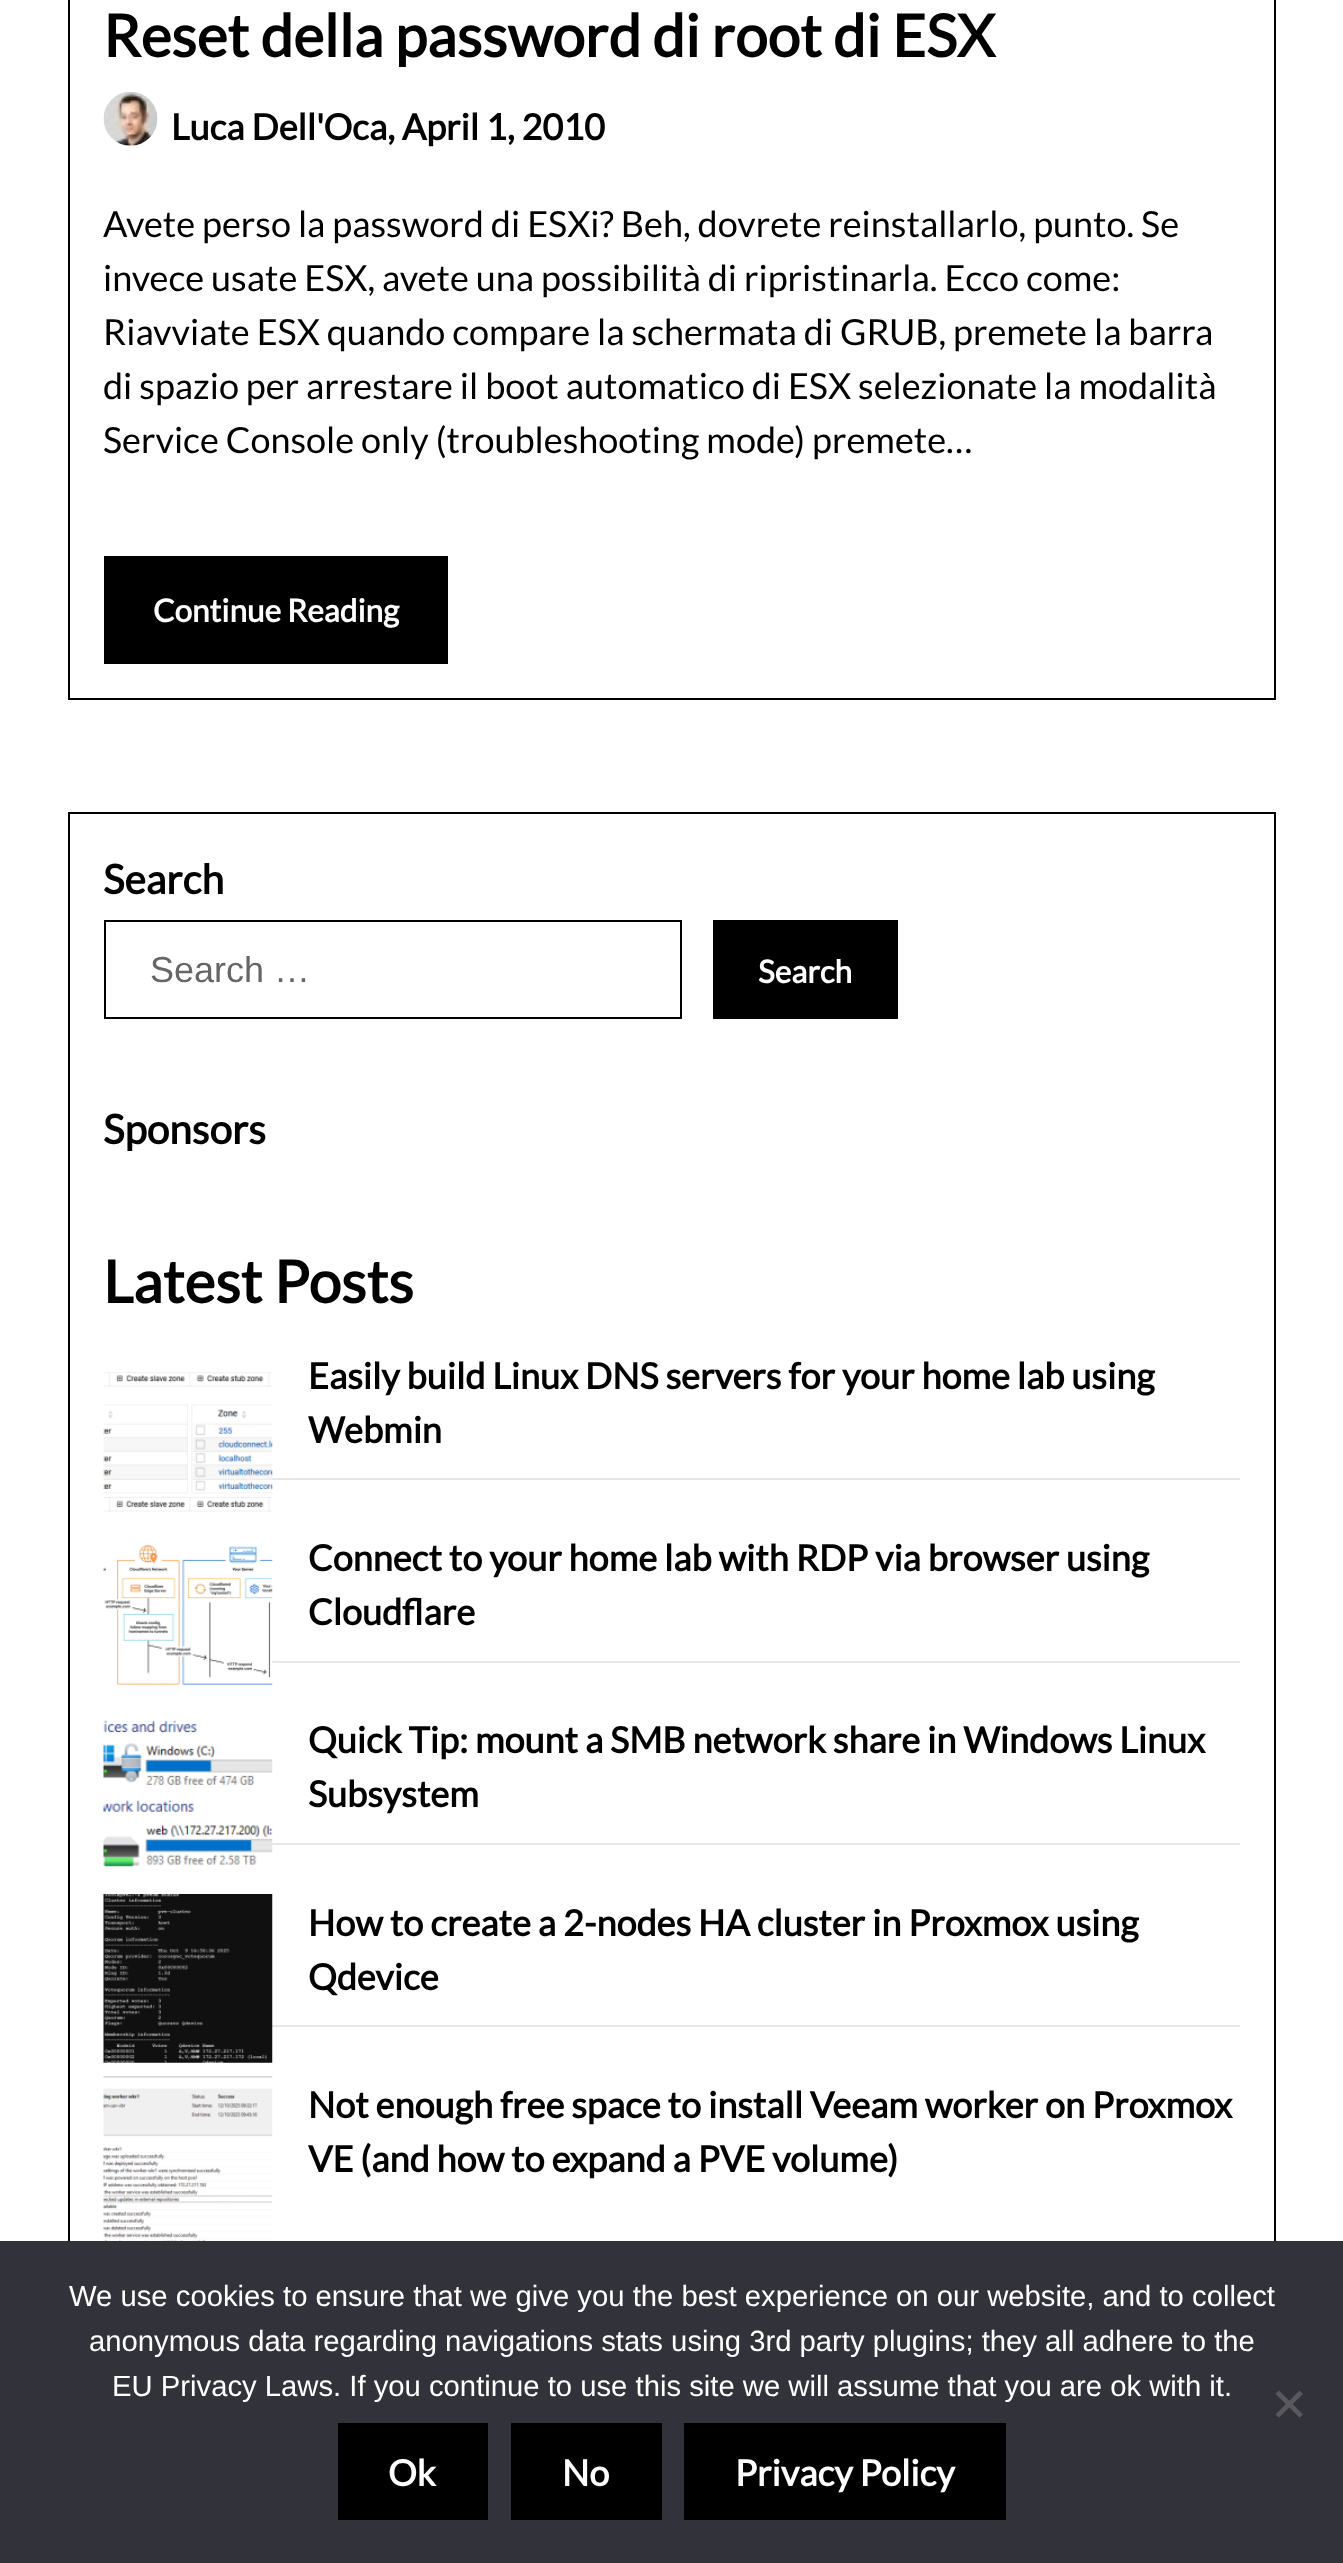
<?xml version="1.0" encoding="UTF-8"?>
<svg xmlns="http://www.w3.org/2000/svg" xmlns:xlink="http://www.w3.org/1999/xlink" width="1343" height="2563">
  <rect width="100%" height="100%" fill="#ffffff" />
  <rect x="69" y="-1" width="1206" height="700" fill="none" stroke="#000000" stroke-width="2" />
  <image x="103" y="92" width="55" height="54" xlink:href="image1.png" />
  <rect x="104" y="556" width="344" height="108" fill="#000000" />
  <rect x="69" y="813" width="1206" height="1481" fill="none" stroke="#000000" stroke-width="2" />
  <rect x="105" y="921" width="576" height="97" fill="none" stroke="#000000" stroke-width="2" />
  <rect x="713" y="920" width="185" height="99" fill="#000000" />
  <rect x="272" y="1478" width="968" height="2" fill="#e6e6e6" />
  <image x="103" y="1372" width="170" height="140" xlink:href="image2.png" />
  <rect x="272" y="1661" width="968" height="2" fill="#e6e6e6" />
  <image x="103" y="1545" width="170" height="140" xlink:href="image3.png" />
  <rect x="272" y="1843" width="968" height="2" fill="#e6e6e6" />
  <image x="103" y="1720" width="170" height="147" xlink:href="image4.png" />
  <rect x="272" y="2025" width="968" height="2" fill="#e6e6e6" />
  <image x="103" y="1894" width="170" height="169" xlink:href="image5.png" />
  <image x="103" y="2076" width="170" height="165" xlink:href="image6.png" />
  <rect y="2241" width="1343" height="322" fill="#32323a" />
  <path d="M 1299.5 2390.5 l 3.5 3.5 l -24 23.5 l -3.5 -3 z" fill="#59595d" />
  <path d="M 1275.5 2394 l 3.5 -3.5 l 24 24 l -3.5 3 z" fill="#59595d" />
  <rect x="338" y="2423" width="150" height="97" fill="#000000" />
  <rect x="511" y="2423" width="151" height="97" fill="#000000" />
  <rect x="684" y="2423" width="322" height="97" fill="#000000" />
  <text x="103" y="57" style="font-family: Lato; font-size: 58.5px; font-weight: bold; fill: #000000">Reset della password di root di ESX</text>
  <text x="171" y="140" style="font-family: Lato; font-size: 36px; font-weight: bold; fill: #000000">Luca Dell'Oca, April 1, 2010</text>
  <text x="103" y="237" style="font-family: Lato; font-size: 36px; fill: #000000">Avete perso la password di ESXi? Beh, dovrete reinstallarlo, punto. Se</text>
  <text x="103" y="291" style="font-family: Lato; font-size: 36px; fill: #000000">invece usate ESX, avete una possibilità di ripristinarla. Ecco come:</text>
  <text x="103" y="345" style="font-family: Lato; font-size: 36px; fill: #000000">Riavviate ESX quando compare la schermata di GRUB, premete la barra</text>
  <text x="103" y="399" style="font-family: Lato; font-size: 36px; fill: #000000">di spazio per arrestare il boot automatico di ESX selezionate la modalità</text>
  <text x="103" y="453" style="font-family: Lato; font-size: 36px; fill: #000000">Service Console only (troubleshooting mode) premete…</text>
  <text x="153" y="622" style="font-family: Lato; font-size: 31.5px; font-weight: bold; fill: #ffffff">Continue Reading</text>
  <text x="103" y="894" style="font-family: Lato; font-size: 40.5px; font-weight: bold; fill: #000000">Search</text>
  <text x="150" y="982" style="font-family: Liberation Sans; font-size: 36px; fill: #666666">Search …</text>
  <text x="758" y="983" style="font-family: Lato; font-size: 31.5px; font-weight: bold; fill: #ffffff">Search</text>
  <text x="103" y="1144" style="font-family: Lato; font-size: 40.5px; font-weight: bold; fill: #000000">Sponsors</text>
  <text x="103" y="1303" style="font-family: Lato; font-size: 58.5px; font-weight: bold; fill: #000000">Latest Posts</text>
  <text x="308" y="1389" style="font-family: Lato; font-size: 36px; font-weight: bold; fill: #000000">Easily build Linux DNS servers for your home lab using</text>
  <text x="308" y="1443" style="font-family: Lato; font-size: 36px; font-weight: bold; fill: #000000">Webmin</text>
  <text x="308" y="1571" style="font-family: Lato; font-size: 36px; font-weight: bold; fill: #000000">Connect to your home lab with RDP via browser using</text>
  <text x="308" y="1625" style="font-family: Lato; font-size: 36px; font-weight: bold; fill: #000000">Cloudflare</text>
  <text x="308" y="1753" style="font-family: Lato; font-size: 36px; font-weight: bold; fill: #000000">Quick Tip: mount a SMB network share in Windows Linux</text>
  <text x="308" y="1807" style="font-family: Lato; font-size: 36px; font-weight: bold; fill: #000000">Subsystem</text>
  <text x="308" y="1936" style="font-family: Lato; font-size: 36px; font-weight: bold; fill: #000000">How to create a 2-nodes HA cluster in Proxmox using</text>
  <text x="308" y="1990" style="font-family: Lato; font-size: 36px; font-weight: bold; fill: #000000">Qdevice</text>
  <text x="308" y="2118" style="font-family: Lato; font-size: 36px; font-weight: bold; fill: #000000">Not enough free space to install Veeam worker on Proxmox</text>
  <text x="308" y="2172" style="font-family: Lato; font-size: 36px; font-weight: bold; fill: #000000">VE (and how to expand a PVE volume)</text>
  <text x="69" y="2306" style="font-family: Liberation Sans; font-size: 29.25px; fill: #ffffff">We use cookies to ensure that we give you the best experience on our website, and to collect</text>
  <text x="89" y="2351" style="font-family: Liberation Sans; font-size: 29.25px; fill: #ffffff">anonymous data regarding navigations stats using 3rd party plugins; they all adhere to the</text>
  <text x="112" y="2396" style="font-family: Liberation Sans; font-size: 29.25px; fill: #ffffff">EU Privacy Laws. If you continue to use this site we will assume that you are ok with it.</text>
  <text x="388" y="2486" style="font-family: Lato; font-size: 36px; font-weight: bold; fill: #ffffff">Ok</text>
  <text x="562" y="2486" style="font-family: Lato; font-size: 36px; font-weight: bold; fill: #ffffff">No</text>
  <text x="735" y="2486" style="font-family: Lato; font-size: 36px; font-weight: bold; fill: #ffffff">Privacy Policy</text>
</svg>
